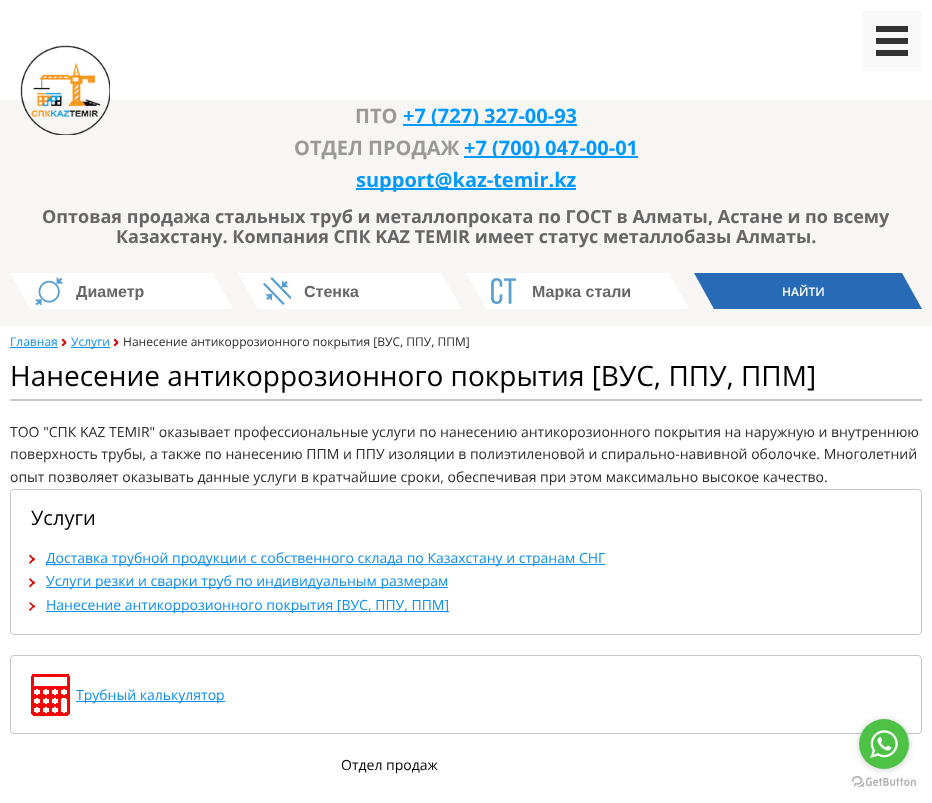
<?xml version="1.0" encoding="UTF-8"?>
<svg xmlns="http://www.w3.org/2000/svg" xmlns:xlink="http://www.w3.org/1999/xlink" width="932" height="803">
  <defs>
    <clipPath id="clip1"><rect x="76" y="283" width="128" height="17" /></clipPath>
    <clipPath id="clip2"><rect x="532" y="283" width="128" height="17" /></clipPath>
  </defs>
  <rect width="100%" height="100%" fill="#ffffff" />
  <rect y="100" width="932" height="226" fill="#f7f6f5" />
  <rect x="862" y="11" width="60" height="60" fill="#f9f9f9" />
  <rect x="876" y="26" width="32" height="6" fill="#333333" />
  <rect x="876" y="38" width="32" height="6" fill="#333333" />
  <rect x="876" y="50" width="32" height="6" fill="#333333" />
  <image x="20" y="45" width="90" height="90" xlink:href="image1.png" />
  <rect x="403" y="124" width="174" height="2" fill="#0099ff" />
  <rect x="464" y="156" width="174" height="2" fill="#0099ff" />
  <rect x="356" y="188" width="220" height="2" fill="#0099ff" />
  <rect x="10" y="273" width="224" height="36" fill="#ffffff" />
  <image x="35" y="277" width="28" height="28" xlink:href="image2.png" />
  <path d="M 35 317 h -25 v -44 z" fill="#f7f6f5" />
  <path d="M 213 273 h 25 v 44 z" fill="#f7f6f5" />
  <rect x="238" y="273" width="224" height="36" fill="#ffffff" />
  <image x="263" y="277" width="28" height="28" xlink:href="image3.png" />
  <path d="M 263 317 h -25 v -44 z" fill="#f7f6f5" />
  <path d="M 441 273 h 25 v 44 z" fill="#f7f6f5" />
  <rect x="466" y="273" width="224" height="36" fill="#ffffff" />
  <image x="491" y="278" width="25" height="26" xlink:href="image4.png" />
  <path d="M 491 317 h -25 v -44 z" fill="#f7f6f5" />
  <path d="M 669 273 h 25 v 44 z" fill="#f7f6f5" />
  <rect x="694" y="273" width="208" height="36" fill="#276bb7" />
  <path d="M 714 309 h -20 v -36 z" fill="#f7f6f5" />
  <path d="M 922 309 h -20 v -36 z" fill="#276bb7" />
  <rect x="10" y="347" width="48" height="1" fill="#0f8fee" />
  <path d="M 65 341.5 l 1.5 1.5 l -3.5 3.5 l -1.5 -1.5 z" fill="#d10b06" />
  <path d="M 61.5 340 l 1.5 -1.5 l 3.5 3.5 l -1.5 1.5 z" fill="#d10b06" />
  <rect x="71" y="347" width="39" height="1" fill="#0f8fee" />
  <path d="M 117 341.5 l 1.5 1.5 l -3.5 3.5 l -1.5 -1.5 z" fill="#d10b06" />
  <path d="M 113.5 340 l 1.5 -1.5 l 3.5 3.5 l -1.5 1.5 z" fill="#d10b06" />
  <rect x="10" y="399" width="912" height="2" fill="#c6c6c6" />
  <rect x="10.5" y="489.5" width="911" height="145" rx="3.5" fill="none" stroke="#c6c6c6" />
  <path d="M 34 557.5 l 1 1.5 l -5 5 l -1 -1.5 z" fill="#d10b06" />
  <path d="M 29 556 l 1 -1.5 l 5 5 l -1 1.5 z" fill="#d10b06" />
  <rect x="46" y="564" width="559" height="1" fill="#0f8fee" />
  <path d="M 34 581 l 1 1.5 l -5 5 l -1 -1.5 z" fill="#d10b06" />
  <path d="M 29 579.5 l 1 -1.5 l 5 5 l -1 1.5 z" fill="#d10b06" />
  <rect x="46" y="587" width="402" height="1" fill="#0f8fee" />
  <path d="M 34 605 l 1 1 l -5 5 l -1 -1.5 z" fill="#d10b06" />
  <path d="M 29 603 l 1 -1 l 5 4.5 l -1 1.5 z" fill="#d10b06" />
  <rect x="46" y="611" width="403" height="1" fill="#0f8fee" />
  <rect x="10.5" y="655.5" width="911" height="78" rx="3.5" fill="none" stroke="#c6c6c6" />
  <image x="31" y="674" width="39" height="42" xlink:href="image5.png" />
  <rect x="76" y="701" width="149" height="1" fill="#0f8fee" />
  <image x="852" y="776" width="64" height="11" xlink:href="image7.png" />
  <rect x="859" y="720" width="50" height="50" rx="25" fill="#888888" fill-opacity="0.4" filter="blur(3.5px)" />
  <circle cx="884" cy="744" r="25" fill="#4dc247" />
  <image x="870" y="730" width="28" height="28" xlink:href="image6.png" />
  <text x="355" y="123" style="font-family: Open Sans; font-size: 20px; font-weight: bold; fill: #999999">ПТО</text>
  <text x="403" y="123" style="font-family: Open Sans; font-size: 20px; font-weight: bold; fill: #0099ff">+7 (727) 327-00-93</text>
  <text x="294" y="155" style="font-family: Open Sans; font-size: 20px; font-weight: bold; fill: #999999">ОТДЕЛ ПРОДАЖ</text>
  <text x="464" y="155" style="font-family: Open Sans; font-size: 20px; font-weight: bold; fill: #0099ff">+7 (700) 047-00-01</text>
  <text x="356" y="187" style="font-family: Open Sans; font-size: 20px; font-weight: bold; fill: #0099ff">support@kaz-temir.kz</text>
  <text x="42" y="223" style="font-family: Open Sans; font-size: 18px; font-weight: bold; fill: #666666">Оптовая продажа стальных труб и металлопроката по ГОСТ в Алматы, Астане и по всему</text>
  <text x="116" y="243" style="font-family: Open Sans; font-size: 18px; font-weight: bold; fill: #666666">Казахстану. Компания СПК KAZ TEMIR имеет статус металлобазы Алматы.</text>
  <g clip-path="url(#clip1)">
    <text x="76" y="297" style="font-family: Liberation Sans; font-size: 16px; font-weight: bold; fill: #666666">Диаметр</text>
  </g>
  <text x="304" y="297" style="font-family: Liberation Sans; font-size: 16px; font-weight: bold; fill: #666666">Стенка</text>
  <g clip-path="url(#clip2)">
    <text x="532" y="297" style="font-family: Liberation Sans; font-size: 16px; font-weight: bold; fill: #666666">Марка стали</text>
  </g>
  <text x="782" y="296" style="font-family: Open Sans; font-size: 12px; font-weight: 600; fill: #ffffff">НАЙТИ</text>
  <text x="10" y="346" style="font-family: Open Sans; font-size: 12.05px; fill: #0f8fee">Главная</text>
  <text x="71" y="346" style="font-family: Open Sans; font-size: 12.05px; fill: #0f8fee">Услуги</text>
  <text x="123" y="346" style="font-family: Open Sans; font-size: 12.05px; fill: #2c2c2c">Нанесение антикоррозионного покрытия [ВУС, ППУ, ППМ]</text>
  <text x="10" y="386" style="font-family: Open Sans; font-size: 28px; fill: #000000">Нанесение антикоррозионного покрытия [ВУС, ППУ, ППМ]</text>
  <text x="10" y="437" style="font-family: Open Sans; font-size: 14px; fill: #2c2c2c">ТОО "СПК KAZ TEMIR" оказывает профессиональные услуги по нанесению антикорозионного покрытия на наружную и внутреннюю</text>
  <text x="10" y="459" style="font-family: Open Sans; font-size: 14px; fill: #2c2c2c">поверхность трубы, а также по нанесению ППМ и ППУ изоляции в полиэтиленовой и спирально-навивной оболочке. Многолетний</text>
  <text x="10" y="482" style="font-family: Open Sans; font-size: 14px; fill: #2c2c2c">опыт позволяет оказывать данные услуги в кратчайшие сроки, обеспечивая при этом максимально высокое качество.</text>
  <text x="31" y="525" style="font-family: Open Sans; font-size: 20px; fill: #000000">Услуги</text>
  <text x="46" y="563" style="font-family: Open Sans; font-size: 14px; fill: #0f8fee">Доставка трубной продукции с собственного склада по Казахстану и странам СНГ</text>
  <text x="46" y="586" style="font-family: Open Sans; font-size: 14px; fill: #0f8fee">Услуги резки и сварки труб по индивидуальным размерам</text>
  <text x="46" y="610" style="font-family: Open Sans; font-size: 14px; fill: #0f8fee">Нанесение антикоррозионного покрытия [ВУС, ППУ, ППМ]</text>
  <text x="76" y="700" style="font-family: Open Sans; font-size: 14px; fill: #0f8fee">Трубный калькулятор</text>
  <text x="341" y="770" style="font-family: Open Sans; font-size: 14px; fill: #000000">Отдел продаж</text>
</svg>
